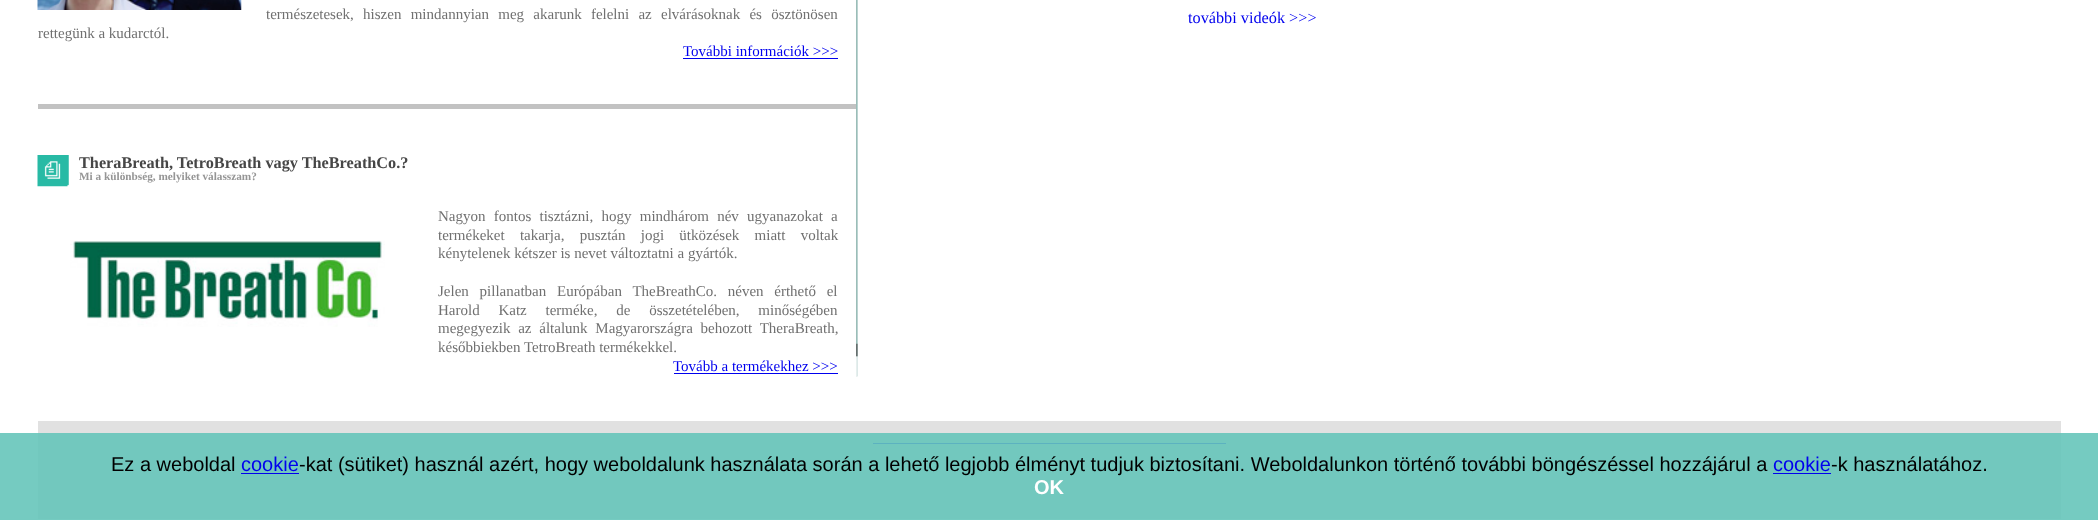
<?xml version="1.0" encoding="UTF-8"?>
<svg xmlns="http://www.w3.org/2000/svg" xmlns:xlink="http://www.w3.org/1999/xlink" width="2098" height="520">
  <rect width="100%" height="100%" fill="#ffffff" />
  <image x="37" y="0" width="205" height="10" xlink:href="image1.png" />
  <rect x="683" y="58" width="155" height="1" fill="#0000ee" />
  <rect x="38" y="104" width="818" height="5" fill="#c2c2c2" />
  <image x="37" y="155" width="32" height="32" xlink:href="image2.png" />
  <image x="70" y="240" width="315" height="87" xlink:href="image3.png" />
  <rect x="674" y="373" width="164" height="1" fill="#0000ee" />
  <image x="856" y="0" width="2" height="377" xlink:href="image4.png" />
  <image x="856" y="343" width="2" height="34" xlink:href="image5.png" />
  <rect x="38" y="421" width="2023" height="98" fill="#e1e1e1" />
  <rect x="873" y="443" width="353" height="1" fill="#0000ee" />
  <rect y="433" width="2098" height="87" fill="#66c5ba" fill-opacity="0.9" />
  <rect x="241" y="473" width="58" height="1" fill="#0000ee" />
  <rect x="1773" y="473" width="58" height="1" fill="#0000ee" />
  <text x="266" y="19" word-spacing="5.5" style="font-family: Liberation Serif; font-size: 15px; fill: #707070">természetesek, hiszen mindannyian meg akarunk felelni az elvárásoknak és ösztönösen</text>
  <text x="38" y="38" style="font-family: Liberation Serif; font-size: 15px; fill: #707070">rettegünk a kudarctól.</text>
  <text x="683" y="56" style="font-family: Liberation Serif; font-size: 15px; fill: #0000ee">További információk &gt;&gt;&gt;</text>
  <text x="79" y="168" style="font-family: Liberation Serif; font-size: 16.25px; font-weight: bold; fill: #464646">TheraBreath, TetroBreath vagy TheBreathCo.?</text>
  <text x="79" y="180" style="font-family: Liberation Serif; font-size: 11.25px; font-weight: bold; fill: #959595">Mi a különbség, melyiket válasszam?</text>
  <text x="438" y="221" word-spacing="4.5" style="font-family: Liberation Serif; font-size: 15px; fill: #707070">Nagyon fontos tisztázni, hogy mindhárom név ugyanazokat a</text>
  <text x="438" y="240" word-spacing="11.5" style="font-family: Liberation Serif; font-size: 15px; fill: #707070">termékeket takarja, pusztán jogi ütközések miatt voltak</text>
  <text x="438" y="258" style="font-family: Liberation Serif; font-size: 15px; fill: #707070">kénytelenek kétszer is nevet változtatni a gyártók.</text>
  <text x="438" y="296" word-spacing="7" style="font-family: Liberation Serif; font-size: 15px; fill: #707070">Jelen pillanatban Európában TheBreathCo. néven érthető el</text>
  <text x="438" y="315" word-spacing="15" style="font-family: Liberation Serif; font-size: 15px; fill: #707070">Harold Katz terméke, de összetételében, minőségében</text>
  <text x="438" y="333" word-spacing="4" style="font-family: Liberation Serif; font-size: 15px; fill: #707070">megegyezik az általunk Magyarországra behozott TheraBreath,</text>
  <text x="438" y="352" style="font-family: Liberation Serif; font-size: 15px; fill: #707070">későbbiekben TetroBreath termékekkel.</text>
  <text x="673" y="371" style="font-family: Liberation Serif; font-size: 15px; fill: #0000ee">Tovább a termékekhez &gt;&gt;&gt;</text>
  <text x="1188" y="23" style="font-family: Liberation Serif; font-size: 16.25px; fill: #0000ee">további videók &gt;&gt;&gt;</text>
  <text x="111" y="471" style="font-family: Liberation Sans; font-size: 20px; fill: #000000">Ez a weboldal</text>
  <text x="241" y="471" style="font-family: Liberation Sans; font-size: 20px; fill: #0000ee">cookie</text>
  <text x="299" y="471" style="font-family: Liberation Sans; font-size: 20px; fill: #000000">-kat (sütiket) használ azért, hogy weboldalunk használata során a lehető legjobb élményt tudjuk biztosítani. Weboldalunkon történő további böngészéssel hozzájárul a</text>
  <text x="1773" y="471" style="font-family: Liberation Sans; font-size: 20px; fill: #0000ee">cookie</text>
  <text x="1831" y="471" style="font-family: Liberation Sans; font-size: 20px; fill: #000000">-k használatához.</text>
  <text x="1034" y="494" style="font-family: Liberation Sans; font-size: 20px; font-weight: bold; fill: #ffffff">OK</text>
</svg>
